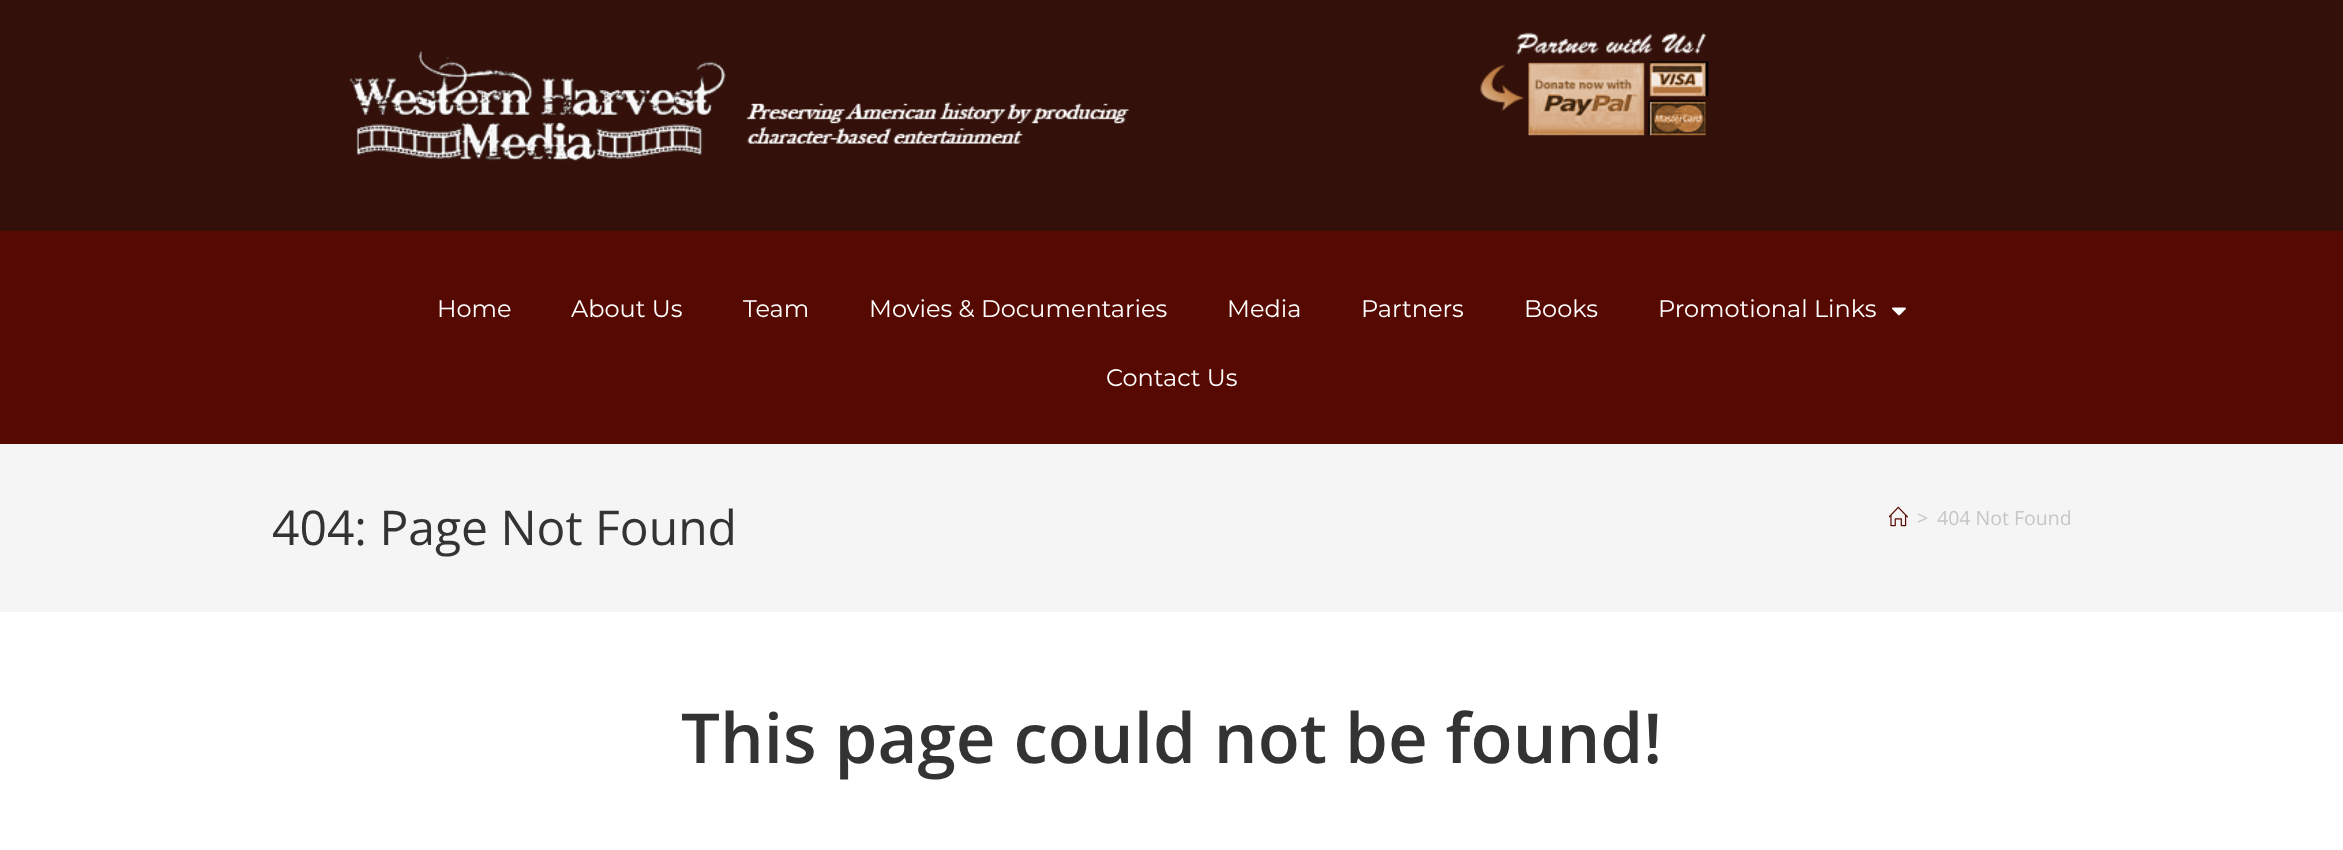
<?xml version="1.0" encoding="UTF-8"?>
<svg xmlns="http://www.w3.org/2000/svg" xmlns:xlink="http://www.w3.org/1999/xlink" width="2343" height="850">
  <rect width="100%" height="100%" fill="#ffffff" />
  <rect width="2343" height="231" fill="#331009" />
  <image x="349" y="50" width="781" height="111" xlink:href="image1.png" />
  <image x="1480" y="32" width="229" height="104" xlink:href="image2.png" />
  <rect y="231" width="2343" height="213" fill="#560900" />
  <image x="1892" y="307" width="14" height="9" xlink:href="image3.png" />
  <rect y="444" width="2343" height="168" fill="#f5f5f5" />
  <image x="1889" y="506" width="19" height="21" xlink:href="image4.png" />
  <text x="437" y="317" style="font-family: Montserrat; font-size: 24px; fill: #ffffff">Home</text>
  <text x="571" y="317" style="font-family: Montserrat; font-size: 24px; fill: #ffffff">About Us</text>
  <text x="743" y="317" style="font-family: Montserrat; font-size: 24px; fill: #ffffff">Team</text>
  <text x="869" y="317" style="font-family: Montserrat; font-size: 24px; fill: #ffffff">Movies &amp; Documentaries</text>
  <text x="1227" y="317" style="font-family: Montserrat; font-size: 24px; fill: #ffffff">Media</text>
  <text x="1361" y="317" style="font-family: Montserrat; font-size: 24px; fill: #ffffff">Partners</text>
  <text x="1524" y="317" style="font-family: Montserrat; font-size: 24px; fill: #ffffff">Books</text>
  <text x="1658" y="317" style="font-family: Montserrat; font-size: 24px; fill: #ffffff">Promotional Links</text>
  <text x="1106" y="386" style="font-family: Montserrat; font-size: 24px; fill: #ffffff">Contact Us</text>
  <text x="272" y="545" style="font-family: Open Sans; font-size: 48px; fill: #333333">404: Page Not Found</text>
  <text x="1917" y="525" style="font-family: Open Sans; font-size: 19.5px; fill: #c6c6c6">&gt;</text>
  <text x="1937" y="525" style="font-family: Open Sans; font-size: 19.5px; fill: #c6c6c6">404 Not Found</text>
  <text x="681" y="763" style="font-family: Open Sans; font-size: 69px; font-weight: 600; fill: #333333">This page could not be found!</text>
</svg>
